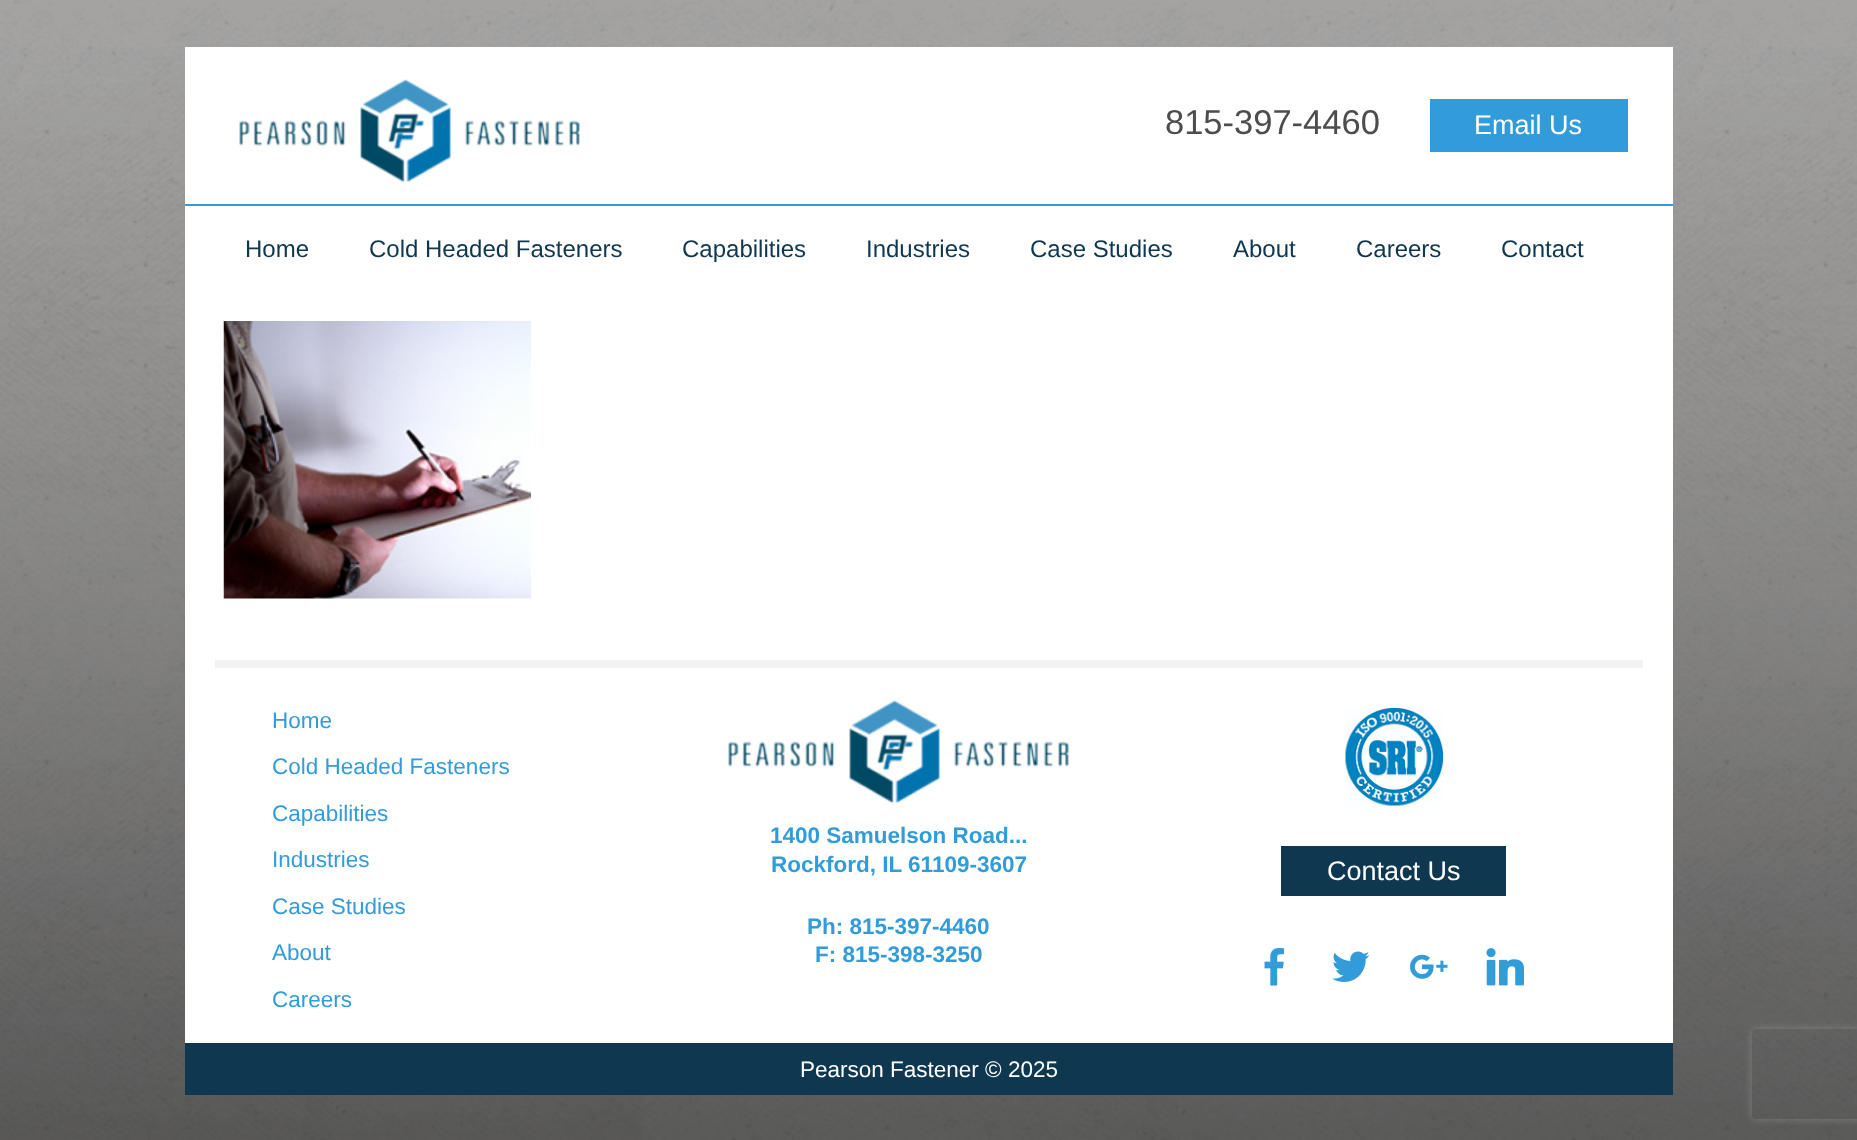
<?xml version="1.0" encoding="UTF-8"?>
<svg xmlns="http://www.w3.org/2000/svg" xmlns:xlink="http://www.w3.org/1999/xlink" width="1857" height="1140">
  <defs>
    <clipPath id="clip1"><path d="M 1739 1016 h 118 v 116 h -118 z m 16 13 h 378 c 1.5 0 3 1.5 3 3 v 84 c 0 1.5 -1.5 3 -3 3 h -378 c -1.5 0 -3 -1.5 -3 -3 v -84 c 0 -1.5 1.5 -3 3 -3 z" clip-rule="evenodd" /></clipPath>
  </defs>
  <rect width="100%" height="100%" fill="#ffffff" />
  <image x="0" y="0" width="1857" height="1140" xlink:href="image1.png" />
  <rect x="185" y="47" width="1488" height="240" fill="#ffffff" />
  <image x="239" y="79" width="342" height="104" xlink:href="image2.png" />
  <rect x="1430" y="99" width="198" height="53" fill="#319cd9" />
  <rect x="185" y="204" width="1488" height="2" fill="#319cd9" />
  <rect x="185" y="287" width="1488" height="756" fill="#ffffff" />
  <image x="223" y="321" width="308" height="278" xlink:href="image3.png" />
  <rect x="215" y="660" width="1428" height="8" fill="#f2f2f2" />
  <image x="728" y="700" width="342" height="104" xlink:href="image4.png" />
  <image x="1345" y="708" width="98" height="98" xlink:href="image5.png" />
  <rect x="1281" y="846" width="225" height="50" fill="#0f3750" />
  <image x="1264" y="948" width="20" height="38" xlink:href="image6.png" />
  <image x="1332" y="951" width="38" height="31" xlink:href="image7.png" />
  <image x="1410" y="954" width="38" height="25" xlink:href="image8.png" />
  <image x="1486" y="948" width="38" height="38" xlink:href="image9.png" />
  <rect x="185" y="1043" width="1488" height="52" fill="#0f3750" />
  <g clip-path="url(#clip1)">
    <rect x="1752" y="1029" width="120" height="90" rx="3" fill="#808080" filter="blur(4px)" />
  </g>
  <text x="1165" y="134" style="font-family: Liberation Sans; font-size: 34.5px; fill: #4d4d4d">815-397-4460</text>
  <text x="1474" y="134" style="font-family: Liberation Sans; font-size: 27px; fill: #ffffff">Email Us</text>
  <text x="245" y="257" style="font-family: Liberation Sans; font-size: 24px; fill: #0f3750">Home</text>
  <text x="369" y="257" style="font-family: Liberation Sans; font-size: 24px; fill: #0f3750">Cold Headed Fasteners</text>
  <text x="682" y="257" style="font-family: Liberation Sans; font-size: 24px; fill: #0f3750">Capabilities</text>
  <text x="866" y="257" style="font-family: Liberation Sans; font-size: 24px; fill: #0f3750">Industries</text>
  <text x="1030" y="257" style="font-family: Liberation Sans; font-size: 24px; fill: #0f3750">Case Studies</text>
  <text x="1233" y="257" style="font-family: Liberation Sans; font-size: 24px; fill: #0f3750">About</text>
  <text x="1356" y="257" style="font-family: Liberation Sans; font-size: 24px; fill: #0f3750">Careers</text>
  <text x="1501" y="257" style="font-family: Liberation Sans; font-size: 24px; fill: #0f3750">Contact</text>
  <text x="272" y="728" style="font-family: Liberation Sans; font-size: 22.5px; fill: #319cd9">Home</text>
  <text x="272" y="774" style="font-family: Liberation Sans; font-size: 22.5px; fill: #319cd9">Cold Headed Fasteners</text>
  <text x="272" y="821" style="font-family: Liberation Sans; font-size: 22.5px; fill: #319cd9">Capabilities</text>
  <text x="272" y="867" style="font-family: Liberation Sans; font-size: 22.5px; fill: #319cd9">Industries</text>
  <text x="272" y="914" style="font-family: Liberation Sans; font-size: 22.5px; fill: #319cd9">Case Studies</text>
  <text x="272" y="960" style="font-family: Liberation Sans; font-size: 22.5px; fill: #319cd9">About</text>
  <text x="272" y="1007" style="font-family: Liberation Sans; font-size: 22.5px; fill: #319cd9">Careers</text>
  <text x="770" y="843" style="font-family: Liberation Sans; font-size: 22.5px; font-weight: bold; fill: #319cd9">1400 Samuelson Road...</text>
  <text x="771" y="872" style="font-family: Liberation Sans; font-size: 22.5px; font-weight: bold; fill: #319cd9">Rockford, IL 61109-3607</text>
  <text x="807" y="934" style="font-family: Liberation Sans; font-size: 22.5px; font-weight: bold; fill: #319cd9">Ph: 815-397-4460</text>
  <text x="815" y="962" style="font-family: Liberation Sans; font-size: 22.5px; font-weight: bold; fill: #319cd9">F: 815-398-3250</text>
  <text x="1327" y="880" style="font-family: Liberation Sans; font-size: 27px; fill: #ffffff">Contact Us</text>
  <text x="800" y="1077" style="font-family: Liberation Sans; font-size: 22.5px; fill: #ffffff">Pearson Fastener © 2025</text>
</svg>
